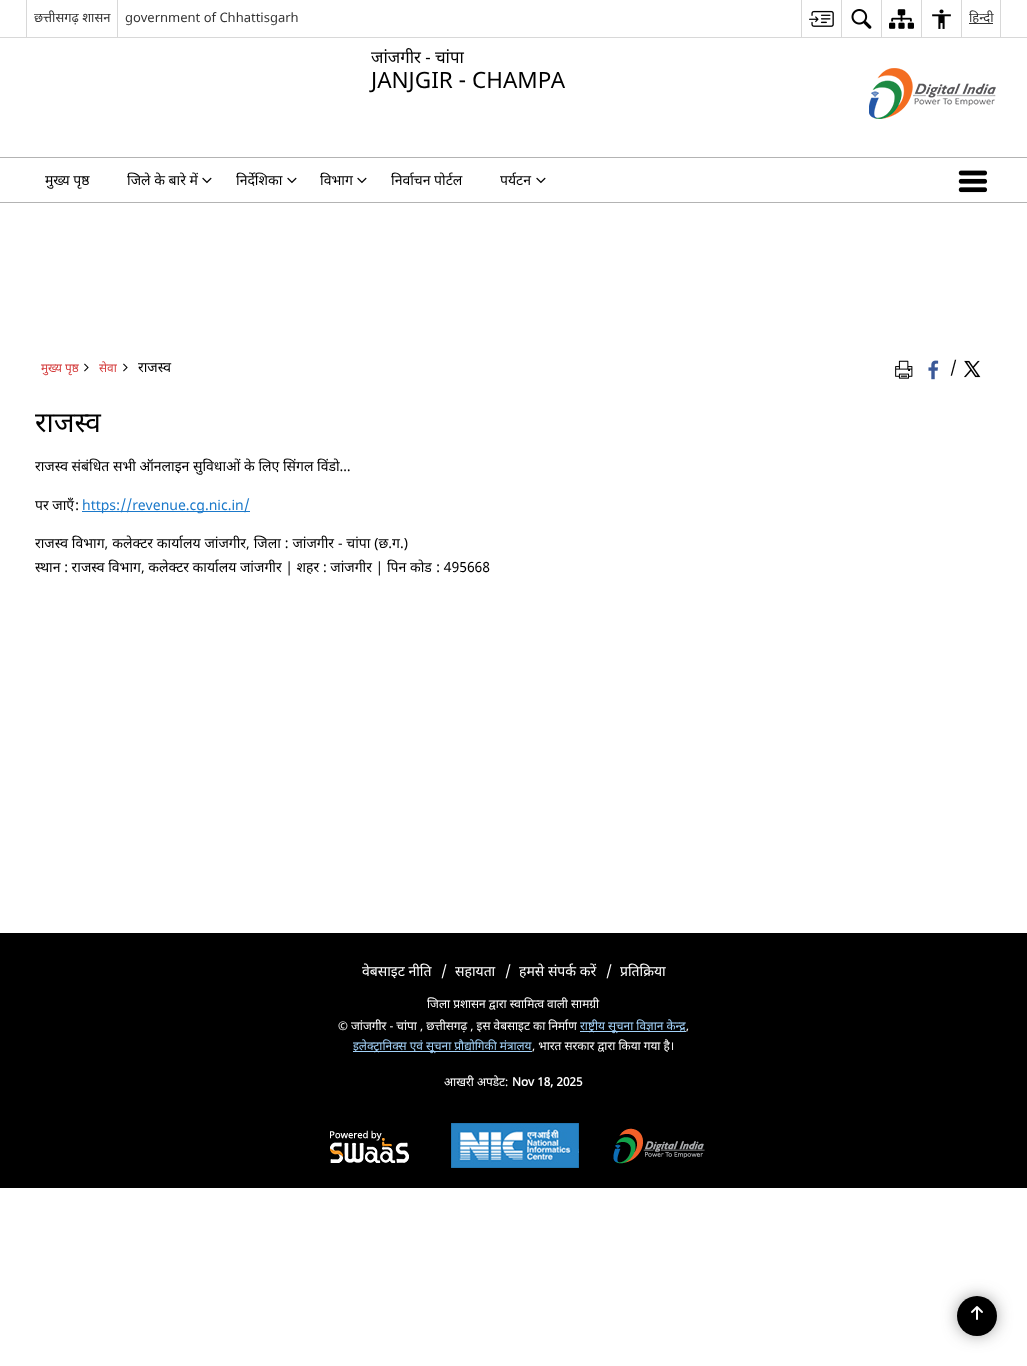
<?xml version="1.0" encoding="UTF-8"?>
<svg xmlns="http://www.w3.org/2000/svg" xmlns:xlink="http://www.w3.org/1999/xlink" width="1027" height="1366">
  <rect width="100%" height="100%" fill="#ffffff" />
  <rect y="37" width="1027" height="1" fill="#d8d8d8" />
  <rect x="26" width="1" height="37" fill="#d8d8d8" />
  <rect x="117" width="1" height="37" fill="#d8d8d8" />
  <rect x="801" width="1" height="37" fill="#d8d8d8" />
  <image x="809" y="10" width="25" height="17" xlink:href="image1.png" />
  <rect x="841" width="1" height="37" fill="#d8d8d8" />
  <image x="851" y="9" width="21" height="20" xlink:href="image2.png" />
  <rect x="881" width="1" height="37" fill="#d8d8d8" />
  <image x="889" y="9" width="25" height="20" xlink:href="image3.png" />
  <rect x="921" width="1" height="37" fill="#d8d8d8" />
  <image x="932" y="9" width="19" height="20" xlink:href="image4.png" />
  <rect x="1000" width="1" height="37" fill="#d8d8d8" />
  <rect x="961" width="1" height="37" fill="#d8d8d8" />
  <rect x="969" y="23" width="24" height="1" fill="#333333" />
  <image x="869" y="68" width="127" height="51" xlink:href="image5.png" />
  <rect y="157" width="1027" height="1" fill="#b3b3b3" />
  <rect y="202" width="1027" height="1" fill="#b3b3b3" />
  <image x="202" y="177" width="10" height="7" xlink:href="image6.png" />
  <image x="287" y="177" width="10" height="7" xlink:href="image6.png" />
  <image x="357" y="177" width="10" height="7" xlink:href="image6.png" />
  <image x="536" y="177" width="10" height="7" xlink:href="image6.png" />
  <image x="958" y="170" width="30" height="23" xlink:href="image7.png" />
  <image x="84" y="363" width="5" height="9" xlink:href="image8.png" />
  <image x="123" y="363" width="5" height="9" xlink:href="image8.png" />
  <image x="895" y="360" width="18" height="19" xlink:href="image9.png" />
  <image x="928" y="360" width="11" height="20" xlink:href="image10.png" />
  <image x="964" y="360" width="17" height="18" xlink:href="image11.png" />
  <rect x="82" y="511" width="168" height="1" fill="#1b79ca" />
  <rect y="933" width="1027" height="255" fill="#000000" />
  <rect x="580" y="1031" width="106" height="1" fill="#a3d2f9" />
  <rect x="353" y="1051" width="179" height="1" fill="#a3d2f9" />
  <image x="330" y="1130" width="79" height="33" xlink:href="image12.png" />
  <image x="451" y="1123" width="128" height="45" xlink:href="image13.png" />
  <image x="613" y="1128" width="92" height="36" xlink:href="image14.png" />
  <rect x="962" y="1301" width="30" height="30" rx="15" fill="#3c3c3c" filter="blur(9.5px)" />
  <circle cx="977" cy="1316" r="20" fill="#000000" />
  <image x="971" y="1306" width="12" height="14" xlink:href="image15.png" />
  <text x="34" y="22" style="font-family: Noto Sans; font-size: 13px; fill: #333333">छत्तीसगढ़ शासन</text>
  <text x="125" y="22" style="font-family: 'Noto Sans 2'; font-size: 13px; fill: #333333">government of Chhattisgarh</text>
  <text x="969" y="22" style="font-family: Noto Sans; font-size: 13px; fill: #333333">हिन्दी</text>
  <text x="371" y="63" style="font-family: Noto Sans; font-size: 16.75px; fill: #000000">जांजगीर - चांपा</text>
  <text x="371" y="88" style="font-family: 'Noto Sans 2'; font-size: 22.5px; fill: #000000">JANJGIR - CHAMPA</text>
  <text x="45" y="185" style="font-family: Noto Sans; font-size: 14px; fill: #000000">मुख्य पृष्ठ</text>
  <text x="127" y="185" style="font-family: Noto Sans; font-size: 14px; fill: #000000">जिले के बारे में</text>
  <text x="236" y="185" style="font-family: Noto Sans; font-size: 14px; fill: #000000">निर्देशिका</text>
  <text x="320" y="185" style="font-family: Noto Sans; font-size: 14px; fill: #000000">विभाग</text>
  <text x="391" y="185" style="font-family: Noto Sans; font-size: 14px; fill: #000000">निर्वाचन पोर्टल</text>
  <text x="500" y="185" style="font-family: Noto Sans; font-size: 14px; fill: #000000">पर्यटन</text>
  <text x="41" y="372" style="font-family: Noto Sans; font-size: 11.9px; fill: #d43c3c">मुख्य पृष्ठ</text>
  <text x="99" y="372" style="font-family: Noto Sans; font-size: 11.9px; fill: #d43c3c">सेवा</text>
  <text x="138" y="372" style="font-family: Noto Sans; font-size: 14px; fill: #000000">राजस्व</text>
  <text x="950" y="373" style="font-family: 'Noto Sans 2'; font-size: 16px; fill: #000000">/</text>
  <text x="35" y="432" style="font-family: Noto Sans; font-size: 28px; fill: #000000">राजस्व</text>
  <text x="35" y="471" style="font-family: Noto Sans; font-size: 14px; fill: #000000">राजस्व संबंधित सभी ऑनलाइन सुविधाओं के लिए सिंगल विंडो…</text>
  <text x="35" y="510" style="font-family: Noto Sans; font-size: 14px; fill: #000000">पर जाएँ</text>
  <text x="75" y="510" style="font-family: 'Noto Sans 2'; font-size: 14px; fill: #000000">:</text>
  <text x="82" y="510" style="font-family: 'Noto Sans 2'; font-size: 14px; fill: #1b79ca">https://revenue.cg.nic.in/</text>
  <text x="35" y="548" word-spacing="0.25" style="font-family: Noto Sans; font-size: 14px; fill: #000000">राजस्व विभाग, कलेक्टर कार्यालय जांजगीर, जिला : जांजगीर - चांपा (छ.ग.)</text>
  <text x="35" y="572" style="font-family: Noto Sans; font-size: 14px; fill: #000000">स्थान : राजस्व विभाग, कलेक्टर कार्यालय जांजगीर | शहर : जांजगीर | पिन कोड</text>
  <text x="436" y="572" style="font-family: 'Noto Sans 2'; font-size: 14px; fill: #000000">: 495668</text>
  <text x="362" y="976" style="font-family: Noto Sans; font-size: 14px; fill: #ffffff">वेबसाइट नीति</text>
  <text x="441" y="976" style="font-family: 'Noto Sans 2'; font-size: 14px; fill: #ffffff">/</text>
  <text x="455" y="976" style="font-family: Noto Sans; font-size: 14px; fill: #ffffff">सहायता</text>
  <text x="505" y="976" style="font-family: 'Noto Sans 2'; font-size: 14px; fill: #ffffff">/</text>
  <text x="519" y="976" style="font-family: Noto Sans; font-size: 14px; fill: #ffffff">हमसे संपर्क करें</text>
  <text x="606" y="976" style="font-family: 'Noto Sans 2'; font-size: 14px; fill: #ffffff">/</text>
  <text x="620" y="976" style="font-family: Noto Sans; font-size: 14px; fill: #ffffff">प्रतिक्रिया</text>
  <text x="427" y="1008" style="font-family: Noto Sans; font-size: 11.9px; fill: #ffffff">जिला प्रशासन द्वारा स्वामित्व वाली सामग्री</text>
  <text x="338" y="1030" style="font-family: Noto Sans; font-size: 11.9px; fill: #ffffff">© जांजगीर - चांपा , छत्तीसगढ़ , इस वेबसाइट का निर्माण</text>
  <text x="580" y="1030" style="font-family: Noto Sans; font-size: 11.9px; fill: #a3d2f9">राष्ट्रीय सूचना विज्ञान केन्द्र</text>
  <text x="686" y="1030" style="font-family: 'Noto Sans 2'; font-size: 11.9px; fill: #ffffff">,</text>
  <text x="353" y="1050" style="font-family: Noto Sans; font-size: 11.9px; fill: #a3d2f9">इलेक्ट्रानिक्स एवं सूचना प्रौद्योगिकी मंत्रालय</text>
  <text x="532" y="1050" style="font-family: Noto Sans; font-size: 11.9px; fill: #ffffff">, भारत सरकार द्वारा किया गया है।</text>
  <text x="444" y="1086" style="font-family: Noto Sans; font-size: 11.9px; fill: #ffffff">आखरी अपडेट:</text>
  <text x="512" y="1086" style="font-family: Noto Sans; font-size: 11.9px; font-weight: bold; fill: #ffffff">Nov 18, 2025</text>
</svg>
